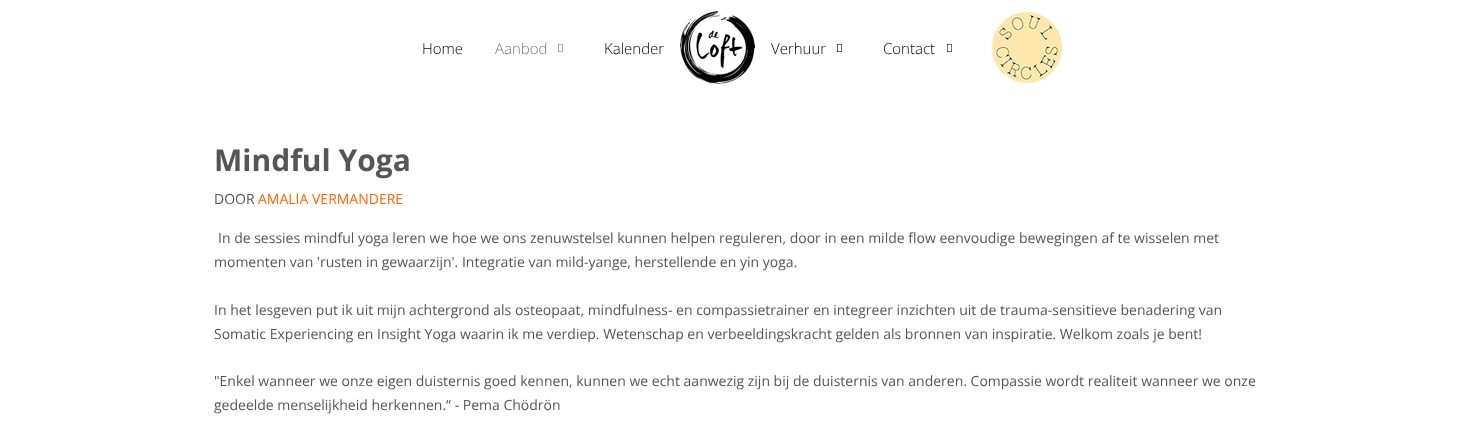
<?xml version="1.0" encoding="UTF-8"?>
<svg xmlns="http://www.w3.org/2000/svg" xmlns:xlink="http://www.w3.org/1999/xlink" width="1484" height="445">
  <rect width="100%" height="100%" fill="#ffffff" />
  <image x="558" y="43" width="5" height="9" xlink:href="image1.png" />
  <image x="680" y="11" width="75" height="73" xlink:href="image2.png" />
  <image x="837" y="43" width="5" height="9" xlink:href="image3.png" />
  <image x="947" y="43" width="5" height="9" xlink:href="image3.png" />
  <image x="992" y="12" width="70" height="71" xlink:href="image4.png" />
  <text x="422" y="54" style="font-family: Open Sans; font-size: 15px; font-weight: 300; fill: #000000">Home</text>
  <text x="495" y="54" style="font-family: Open Sans; font-size: 15px; font-weight: 300; fill: #777777">Aanbod</text>
  <text x="604" y="54" style="font-family: Open Sans; font-size: 15px; font-weight: 300; fill: #000000">Kalender</text>
  <text x="771" y="54" style="font-family: Open Sans; font-size: 15px; font-weight: 300; fill: #000000">Verhuur</text>
  <text x="883" y="54" style="font-family: Open Sans; font-size: 15px; font-weight: 300; fill: #000000">Contact</text>
  <text x="214" y="171" style="font-family: Open Sans; font-size: 30px; font-weight: bold; fill: #555555">Mindful Yoga</text>
  <text x="214" y="204" style="font-family: Open Sans; font-size: 14px; fill: #555555">DOOR</text>
  <text x="258" y="204" style="font-family: Open Sans; font-size: 14px; fill: #ff6600">AMALIA VERMANDERE</text>
  <text x="218" y="243" style="font-family: Open Sans; font-size: 14px; fill: #555555">In de sessies mindful yoga leren we hoe we ons zenuwstelsel kunnen helpen reguleren, door in een milde flow eenvoudige bewegingen af te wisselen met</text>
  <text x="214" y="267" style="font-family: Open Sans; font-size: 14px; fill: #555555">momenten van 'rusten in gewaarzijn'. Integratie van mild-yange, herstellende en yin yoga.</text>
  <text x="214" y="315" style="font-family: Open Sans; font-size: 14px; fill: #555555">In het lesgeven put ik uit mijn achtergrond als osteopaat, mindfulness- en compassietrainer en integreer inzichten uit de trauma-sensitieve benadering van</text>
  <text x="214" y="339" style="font-family: Open Sans; font-size: 14px; fill: #555555">Somatic Experiencing en Insight Yoga waarin ik me verdiep. Wetenschap en verbeeldingskracht gelden als bronnen van inspiratie. Welkom zoals je bent!</text>
  <text x="214" y="386" style="font-family: Open Sans; font-size: 14px; fill: #555555">"Enkel wanneer we onze eigen duisternis goed kennen, kunnen we echt aanwezig zijn bij de duisternis van anderen. Compassie wordt realiteit wanneer we onze</text>
  <text x="214" y="410" style="font-family: Open Sans; font-size: 14px; fill: #555555">gedeelde menselijkheid herkennen.“ - Pema Chödrön</text>
</svg>
